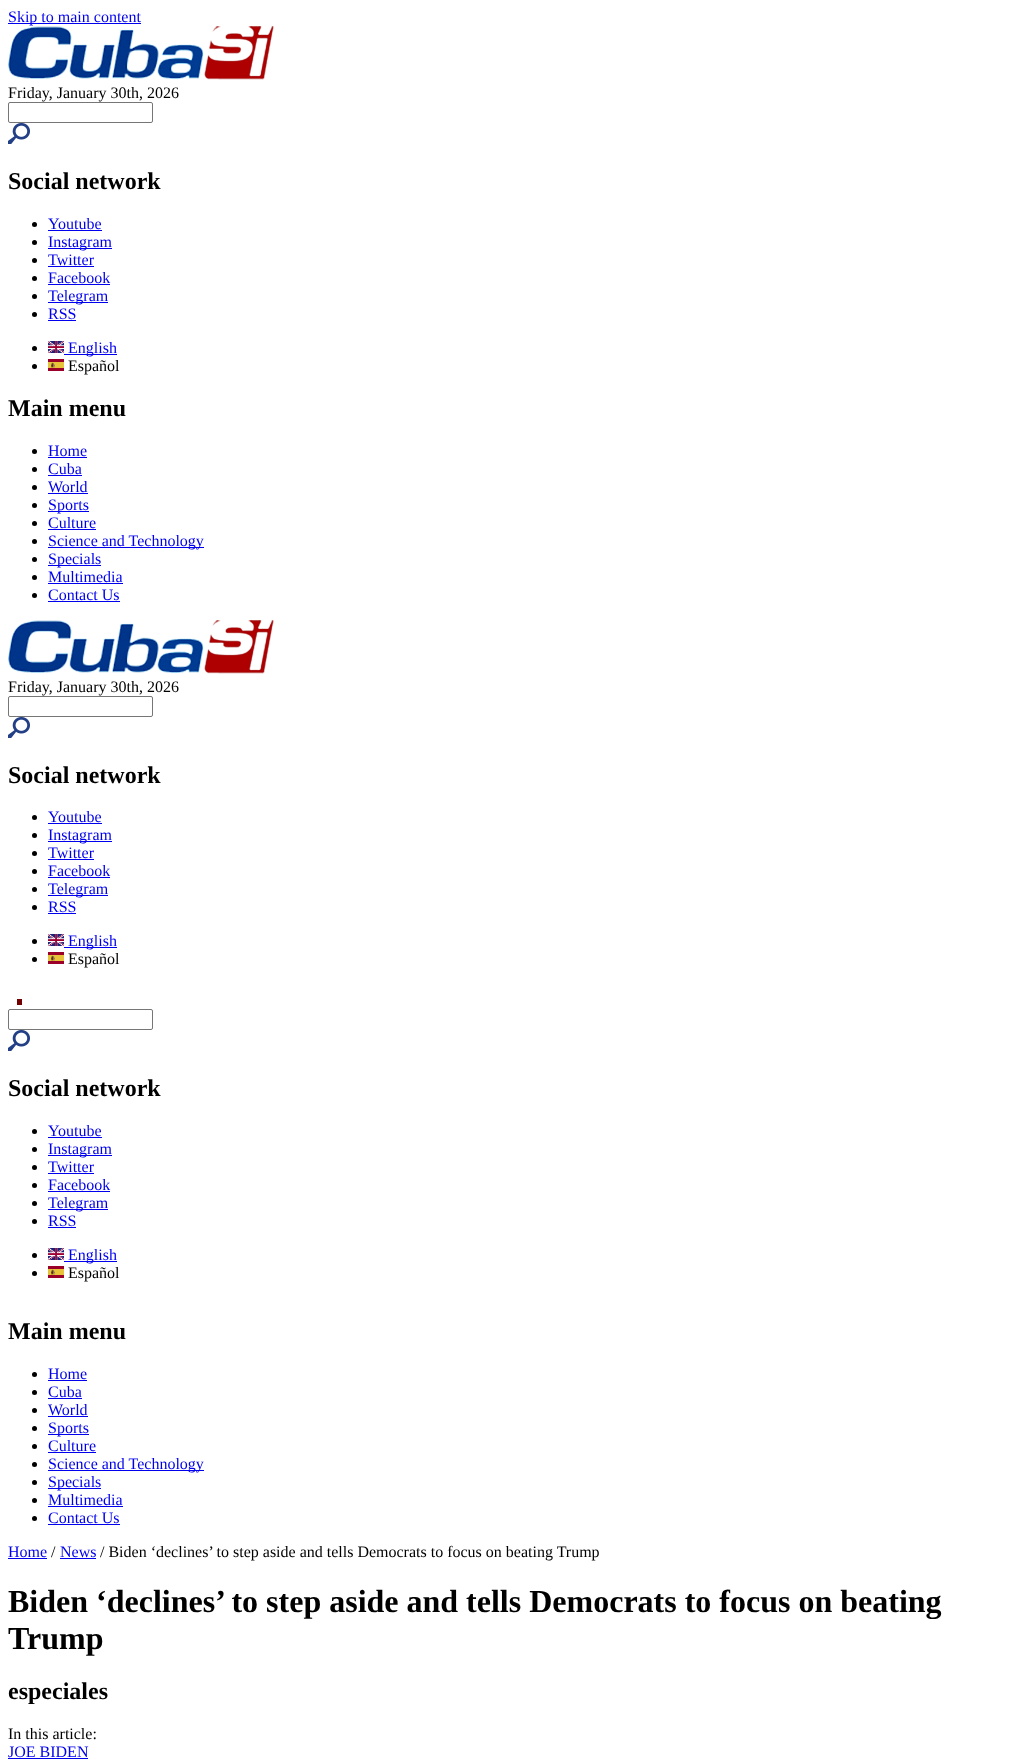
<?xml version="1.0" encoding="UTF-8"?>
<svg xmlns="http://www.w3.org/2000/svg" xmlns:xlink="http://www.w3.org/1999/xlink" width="1013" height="1759">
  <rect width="100%" height="100%" fill="#ffffff" />
  <rect x="8" y="23" width="133" height="1" fill="#0000ee" />
  <image x="8" y="26" width="266" height="54" xlink:href="image1.png" />
  <rect x="8.5" y="102.5" width="144" height="20" rx="1.5" fill="none" stroke="#767676" />
  <image x="8" y="123" width="22" height="21" xlink:href="image2.png" />
  <circle cx="34.5" cy="224.5" r="2.5" fill="#000000" />
  <rect x="48" y="230" width="54" height="1" fill="#0000ee" />
  <circle cx="34.5" cy="242.5" r="2.5" fill="#000000" />
  <rect x="48" y="248" width="64" height="1" fill="#0000ee" />
  <circle cx="34.5" cy="260.5" r="2.5" fill="#000000" />
  <rect x="48" y="266" width="46" height="1" fill="#0000ee" />
  <circle cx="34.5" cy="278.5" r="2.5" fill="#000000" />
  <rect x="48" y="284" width="62" height="1" fill="#0000ee" />
  <circle cx="34.5" cy="296.5" r="2.5" fill="#000000" />
  <rect x="48" y="302" width="60" height="1" fill="#0000ee" />
  <circle cx="34.5" cy="314.5" r="2.5" fill="#000000" />
  <rect x="48" y="320" width="28" height="1" fill="#0000ee" />
  <circle cx="34.5" cy="348.5" r="2.5" fill="#000000" />
  <image x="48" y="341" width="16" height="12" xlink:href="image3.png" />
  <rect x="64" y="354" width="53" height="1" fill="#0000ee" />
  <circle cx="34.5" cy="366.5" r="2.5" fill="#000000" />
  <image x="48" y="359" width="16" height="12" xlink:href="image4.png" />
  <circle cx="34.5" cy="451.5" r="2.5" fill="#000000" />
  <rect x="48" y="457" width="39" height="1" fill="#0000ee" />
  <circle cx="34.5" cy="469.5" r="2.5" fill="#000000" />
  <rect x="48" y="475" width="34" height="1" fill="#0000ee" />
  <circle cx="34.5" cy="487.5" r="2.5" fill="#000000" />
  <rect x="48" y="493" width="40" height="1" fill="#0000ee" />
  <circle cx="34.5" cy="505.5" r="2.5" fill="#000000" />
  <rect x="48" y="511" width="41" height="1" fill="#0000ee" />
  <circle cx="34.5" cy="523.5" r="2.5" fill="#000000" />
  <rect x="48" y="529" width="48" height="1" fill="#0000ee" />
  <circle cx="34.5" cy="541.5" r="2.5" fill="#000000" />
  <rect x="48" y="547" width="156" height="1" fill="#0000ee" />
  <circle cx="34.5" cy="559.5" r="2.5" fill="#000000" />
  <rect x="48" y="565" width="53" height="1" fill="#0000ee" />
  <circle cx="34.5" cy="577.5" r="2.5" fill="#000000" />
  <rect x="48" y="583" width="75" height="1" fill="#0000ee" />
  <circle cx="34.5" cy="595.5" r="2.5" fill="#000000" />
  <rect x="48" y="601" width="72" height="1" fill="#0000ee" />
  <image x="8" y="620" width="266" height="54" xlink:href="image1.png" />
  <rect x="8.5" y="696.5" width="144" height="20" rx="1.5" fill="none" stroke="#767676" />
  <image x="8" y="717" width="22" height="21" xlink:href="image2.png" />
  <circle cx="34.5" cy="817.5" r="2.5" fill="#000000" />
  <rect x="48" y="823" width="54" height="1" fill="#0000ee" />
  <circle cx="34.5" cy="835.5" r="2.5" fill="#000000" />
  <rect x="48" y="841" width="64" height="1" fill="#0000ee" />
  <circle cx="34.5" cy="853.5" r="2.5" fill="#000000" />
  <rect x="48" y="859" width="46" height="1" fill="#0000ee" />
  <circle cx="34.5" cy="871.5" r="2.5" fill="#000000" />
  <rect x="48" y="877" width="62" height="1" fill="#0000ee" />
  <circle cx="34.5" cy="889.5" r="2.5" fill="#000000" />
  <rect x="48" y="895" width="60" height="1" fill="#0000ee" />
  <circle cx="34.5" cy="907.5" r="2.5" fill="#000000" />
  <rect x="48" y="913" width="28" height="1" fill="#0000ee" />
  <circle cx="34.5" cy="941.5" r="2.5" fill="#000000" />
  <image x="48" y="934" width="16" height="12" xlink:href="image3.png" />
  <rect x="64" y="947" width="53" height="1" fill="#0000ee" />
  <circle cx="34.5" cy="959.5" r="2.5" fill="#000000" />
  <image x="48" y="952" width="16" height="12" xlink:href="image4.png" />
  <rect x="17" y="999" width="5" height="6" fill="#720000" />
  <rect x="8.5" y="1009.5" width="144" height="20" rx="1.5" fill="none" stroke="#767676" />
  <image x="8" y="1030" width="22" height="21" xlink:href="image2.png" />
  <circle cx="34.5" cy="1131.5" r="2.5" fill="#000000" />
  <rect x="48" y="1137" width="54" height="1" fill="#0000ee" />
  <circle cx="34.5" cy="1149.5" r="2.5" fill="#000000" />
  <rect x="48" y="1155" width="64" height="1" fill="#0000ee" />
  <circle cx="34.5" cy="1167.5" r="2.5" fill="#000000" />
  <rect x="48" y="1173" width="46" height="1" fill="#0000ee" />
  <circle cx="34.5" cy="1185.5" r="2.5" fill="#000000" />
  <rect x="48" y="1191" width="62" height="1" fill="#0000ee" />
  <circle cx="34.5" cy="1203.5" r="2.5" fill="#000000" />
  <rect x="48" y="1209" width="60" height="1" fill="#0000ee" />
  <circle cx="34.5" cy="1221.5" r="2.5" fill="#000000" />
  <rect x="48" y="1227" width="28" height="1" fill="#0000ee" />
  <circle cx="34.5" cy="1255.5" r="2.5" fill="#000000" />
  <image x="48" y="1248" width="16" height="12" xlink:href="image3.png" />
  <rect x="64" y="1261" width="53" height="1" fill="#0000ee" />
  <circle cx="34.5" cy="1273.5" r="2.5" fill="#000000" />
  <image x="48" y="1266" width="16" height="12" xlink:href="image4.png" />
  <circle cx="34.5" cy="1374.5" r="2.5" fill="#000000" />
  <rect x="48" y="1380" width="39" height="1" fill="#0000ee" />
  <circle cx="34.5" cy="1392.5" r="2.5" fill="#000000" />
  <rect x="48" y="1398" width="34" height="1" fill="#0000ee" />
  <circle cx="34.5" cy="1410.5" r="2.5" fill="#000000" />
  <rect x="48" y="1416" width="40" height="1" fill="#0000ee" />
  <circle cx="34.5" cy="1428.5" r="2.5" fill="#000000" />
  <rect x="48" y="1434" width="41" height="1" fill="#0000ee" />
  <circle cx="34.5" cy="1446.5" r="2.5" fill="#000000" />
  <rect x="48" y="1452" width="48" height="1" fill="#0000ee" />
  <circle cx="34.5" cy="1464.5" r="2.5" fill="#000000" />
  <rect x="48" y="1470" width="156" height="1" fill="#0000ee" />
  <circle cx="34.5" cy="1482.5" r="2.5" fill="#000000" />
  <rect x="48" y="1488" width="53" height="1" fill="#0000ee" />
  <circle cx="34.5" cy="1500.5" r="2.5" fill="#000000" />
  <rect x="48" y="1506" width="75" height="1" fill="#0000ee" />
  <circle cx="34.5" cy="1518.5" r="2.5" fill="#000000" />
  <rect x="48" y="1524" width="72" height="1" fill="#0000ee" />
  <rect x="8" y="1558" width="39" height="1" fill="#0000ee" />
  <rect x="60" y="1558" width="36" height="1" fill="#0000ee" />
  <rect x="8" y="1758" width="80" height="1" fill="#0000ee" />
  <text x="8" y="22" style="font-family: Liberation Serif; font-size: 16px; fill: #0000ee">Skip to main content</text>
  <text x="8" y="98" style="font-family: Liberation Serif; font-size: 16px; fill: #000000">Friday, January 30th, 2026</text>
  <text x="8" y="189" style="font-family: Liberation Serif; font-size: 24px; font-weight: bold; fill: #000000">Social network</text>
  <text x="48" y="229" style="font-family: Liberation Serif; font-size: 16px; fill: #0000ee">Youtube</text>
  <text x="48" y="247" style="font-family: Liberation Serif; font-size: 16px; fill: #0000ee">Instagram</text>
  <text x="48" y="265" style="font-family: Liberation Serif; font-size: 16px; fill: #0000ee">Twitter</text>
  <text x="48" y="283" style="font-family: Liberation Serif; font-size: 16px; fill: #0000ee">Facebook</text>
  <text x="48" y="301" style="font-family: Liberation Serif; font-size: 16px; fill: #0000ee">Telegram</text>
  <text x="48" y="319" style="font-family: Liberation Serif; font-size: 16px; fill: #0000ee">RSS</text>
  <text x="68" y="353" style="font-family: Liberation Serif; font-size: 16px; fill: #0000ee">English</text>
  <text x="68" y="371" style="font-family: Liberation Serif; font-size: 16px; fill: #000000">Español</text>
  <text x="8" y="416" style="font-family: Liberation Serif; font-size: 24px; font-weight: bold; fill: #000000">Main menu</text>
  <text x="48" y="456" style="font-family: Liberation Serif; font-size: 16px; fill: #0000ee">Home</text>
  <text x="48" y="474" style="font-family: Liberation Serif; font-size: 16px; fill: #0000ee">Cuba</text>
  <text x="48" y="492" style="font-family: Liberation Serif; font-size: 16px; fill: #0000ee">World</text>
  <text x="48" y="510" style="font-family: Liberation Serif; font-size: 16px; fill: #0000ee">Sports</text>
  <text x="48" y="528" style="font-family: Liberation Serif; font-size: 16px; fill: #0000ee">Culture</text>
  <text x="48" y="546" style="font-family: Liberation Serif; font-size: 16px; fill: #0000ee">Science and Technology</text>
  <text x="48" y="564" style="font-family: Liberation Serif; font-size: 16px; fill: #0000ee">Specials</text>
  <text x="48" y="582" style="font-family: Liberation Serif; font-size: 16px; fill: #0000ee">Multimedia</text>
  <text x="48" y="600" style="font-family: Liberation Serif; font-size: 16px; fill: #0000ee">Contact Us</text>
  <text x="8" y="692" style="font-family: Liberation Serif; font-size: 16px; fill: #000000">Friday, January 30th, 2026</text>
  <text x="8" y="783" style="font-family: Liberation Serif; font-size: 24px; font-weight: bold; fill: #000000">Social network</text>
  <text x="48" y="822" style="font-family: Liberation Serif; font-size: 16px; fill: #0000ee">Youtube</text>
  <text x="48" y="840" style="font-family: Liberation Serif; font-size: 16px; fill: #0000ee">Instagram</text>
  <text x="48" y="858" style="font-family: Liberation Serif; font-size: 16px; fill: #0000ee">Twitter</text>
  <text x="48" y="876" style="font-family: Liberation Serif; font-size: 16px; fill: #0000ee">Facebook</text>
  <text x="48" y="894" style="font-family: Liberation Serif; font-size: 16px; fill: #0000ee">Telegram</text>
  <text x="48" y="912" style="font-family: Liberation Serif; font-size: 16px; fill: #0000ee">RSS</text>
  <text x="68" y="946" style="font-family: Liberation Serif; font-size: 16px; fill: #0000ee">English</text>
  <text x="68" y="964" style="font-family: Liberation Serif; font-size: 16px; fill: #000000">Español</text>
  <text x="8" y="1096" style="font-family: Liberation Serif; font-size: 24px; font-weight: bold; fill: #000000">Social network</text>
  <text x="48" y="1136" style="font-family: Liberation Serif; font-size: 16px; fill: #0000ee">Youtube</text>
  <text x="48" y="1154" style="font-family: Liberation Serif; font-size: 16px; fill: #0000ee">Instagram</text>
  <text x="48" y="1172" style="font-family: Liberation Serif; font-size: 16px; fill: #0000ee">Twitter</text>
  <text x="48" y="1190" style="font-family: Liberation Serif; font-size: 16px; fill: #0000ee">Facebook</text>
  <text x="48" y="1208" style="font-family: Liberation Serif; font-size: 16px; fill: #0000ee">Telegram</text>
  <text x="48" y="1226" style="font-family: Liberation Serif; font-size: 16px; fill: #0000ee">RSS</text>
  <text x="68" y="1260" style="font-family: Liberation Serif; font-size: 16px; fill: #0000ee">English</text>
  <text x="68" y="1278" style="font-family: Liberation Serif; font-size: 16px; fill: #000000">Español</text>
  <text x="8" y="1339" style="font-family: Liberation Serif; font-size: 24px; font-weight: bold; fill: #000000">Main menu</text>
  <text x="48" y="1379" style="font-family: Liberation Serif; font-size: 16px; fill: #0000ee">Home</text>
  <text x="48" y="1397" style="font-family: Liberation Serif; font-size: 16px; fill: #0000ee">Cuba</text>
  <text x="48" y="1415" style="font-family: Liberation Serif; font-size: 16px; fill: #0000ee">World</text>
  <text x="48" y="1433" style="font-family: Liberation Serif; font-size: 16px; fill: #0000ee">Sports</text>
  <text x="48" y="1451" style="font-family: Liberation Serif; font-size: 16px; fill: #0000ee">Culture</text>
  <text x="48" y="1469" style="font-family: Liberation Serif; font-size: 16px; fill: #0000ee">Science and Technology</text>
  <text x="48" y="1487" style="font-family: Liberation Serif; font-size: 16px; fill: #0000ee">Specials</text>
  <text x="48" y="1505" style="font-family: Liberation Serif; font-size: 16px; fill: #0000ee">Multimedia</text>
  <text x="48" y="1523" style="font-family: Liberation Serif; font-size: 16px; fill: #0000ee">Contact Us</text>
  <text x="8" y="1557" style="font-family: Liberation Serif; font-size: 16px; fill: #0000ee">Home</text>
  <text x="51" y="1557" style="font-family: Liberation Serif; font-size: 16px; fill: #000000">/</text>
  <text x="60" y="1557" style="font-family: Liberation Serif; font-size: 16px; fill: #0000ee">News</text>
  <text x="100" y="1557" style="font-family: Liberation Serif; font-size: 16px; fill: #000000">/ Biden ‘declines’ to step aside and tells Democrats to focus on beating Trump</text>
  <text x="8" y="1612" style="font-family: Liberation Serif; font-size: 32px; font-weight: bold; fill: #000000">Biden ‘declines’ to step aside and tells Democrats to focus on beating</text>
  <text x="8" y="1649" style="font-family: Liberation Serif; font-size: 32px; font-weight: bold; fill: #000000">Trump</text>
  <text x="8" y="1699" style="font-family: Liberation Serif; font-size: 24px; font-weight: bold; fill: #000000">especiales</text>
  <text x="8" y="1739" style="font-family: Liberation Serif; font-size: 16px; fill: #000000">In this article:</text>
  <text x="8" y="1757" style="font-family: Liberation Serif; font-size: 16px; fill: #0000ee">JOE BIDEN</text>
</svg>
